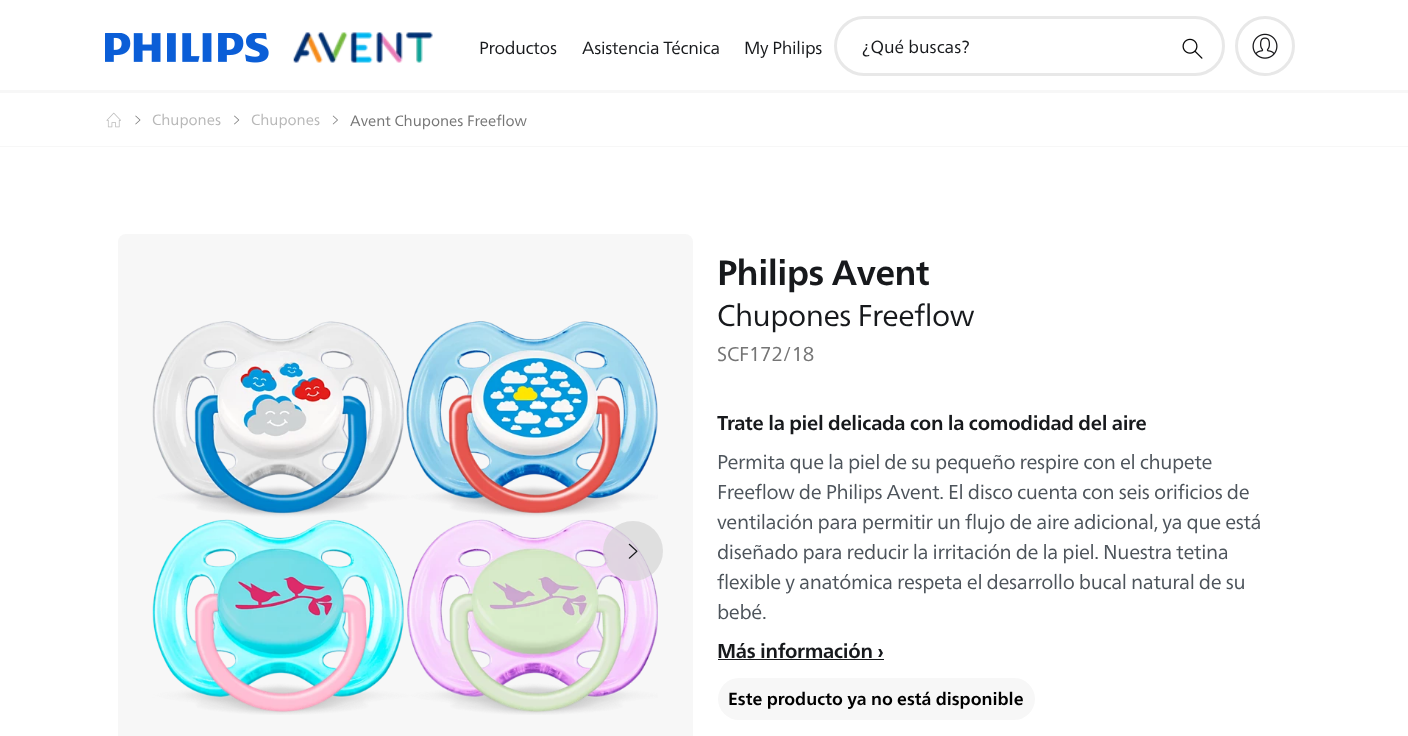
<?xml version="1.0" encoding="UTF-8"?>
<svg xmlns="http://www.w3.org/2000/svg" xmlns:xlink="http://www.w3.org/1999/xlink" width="1408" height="736">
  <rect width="100%" height="100%" fill="#ffffff" />
  <image x="105" y="33" width="164" height="30" xlink:href="image1.png" />
  <image x="293" y="32" width="140" height="31" xlink:href="image2.png" />
  <rect y="90" width="1408" height="3" fill="#f7f7f7" />
  <rect x="835.5" y="17.5" width="388" height="57" rx="28.5" fill="none" stroke="#e8e8e8" stroke-width="3" />
  <image x="1182" y="38" width="21" height="21" xlink:href="image3.png" />
  <circle cx="1265" cy="46" r="28.5" fill="none" stroke="#e8e8e8" stroke-width="3" />
  <image x="1252" y="33" width="26" height="26" xlink:href="image4.png" />
  <rect y="146" width="1408" height="1" fill="#f7f7f7" />
  <image x="106" y="112" width="15" height="16" xlink:href="image5.png" />
  <image x="135" y="115" width="6" height="10" xlink:href="image6.png" />
  <image x="234" y="115" width="6" height="10" xlink:href="image7.png" />
  <image x="332" y="115" width="6" height="10" xlink:href="image8.png" />
  <rect x="118" y="234" width="575" height="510" rx="8" fill="#f7f7f7" />
  <image x="152" y="321" width="506" height="394" xlink:href="image9.png" />
  <circle cx="633" cy="551" r="30" fill="#d1d1d1" fill-opacity="0.64" />
  <image x="628" y="543" width="10" height="16" xlink:href="image10.png" />
  <rect x="718" y="659" width="166" height="1" fill="#17191c" />
  <rect x="718" y="678" width="317" height="42" rx="21" fill="#f7f7f7" />
  <text x="479" y="54" style="font-family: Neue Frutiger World; font-size: 17.5px; letter-spacing: -0.25px; fill: #17191c">Productos</text>
  <text x="582" y="54" style="font-family: Neue Frutiger World; font-size: 17.5px; letter-spacing: -0.25px; fill: #17191c">Asistencia Técnica</text>
  <text x="744" y="54" style="font-family: Neue Frutiger World; font-size: 17.5px; letter-spacing: -0.25px; fill: #17191c">My Philips</text>
  <text x="862" y="53" style="font-family: Neue Frutiger World; font-size: 17.5px; fill: #17191c">¿Qué buscas?</text>
  <text x="152" y="125" style="font-family: Neue Frutiger World; font-size: 15px; fill: #b8b8b8">Chupones</text>
  <text x="251" y="125" style="font-family: Neue Frutiger World; font-size: 15px; fill: #b8b8b8">Chupones</text>
  <text x="350" y="126" style="font-family: Neue Frutiger World; font-size: 15px; fill: #757575">Avent Chupones Freeflow</text>
  <text x="717" y="285" style="font-family: Neue Frutiger World; font-size: 35px; font-weight: bold; letter-spacing: -0.5px; fill: #17191c">Philips Avent</text>
  <text x="717" y="326" style="font-family: Neue Frutiger World; font-size: 30px; letter-spacing: -0.5px; fill: #17191c">Chupones Freeflow</text>
  <text x="717" y="361" style="font-family: Neue Frutiger World; font-size: 20px; letter-spacing: -0.25px; fill: #757575">SCF172/18</text>
  <text x="717" y="430" style="font-family: Neue Frutiger World; font-size: 20px; font-weight: bold; letter-spacing: -0.3px; fill: #17191c">Trate la piel delicada con la comodidad del aire</text>
  <text x="717" y="469" style="font-family: Neue Frutiger World; font-size: 20px; letter-spacing: -0.35px; fill: #4d545b">Permita que la piel de su pequeño respire con el chupete</text>
  <text x="717" y="499" style="font-family: Neue Frutiger World; font-size: 20px; letter-spacing: -0.35px; fill: #4d545b">Freeflow de Philips Avent. El disco cuenta con seis orificios de</text>
  <text x="717" y="529" style="font-family: Neue Frutiger World; font-size: 20px; letter-spacing: -0.35px; fill: #4d545b">ventilación para permitir un flujo de aire adicional, ya que está</text>
  <text x="717" y="559" style="font-family: Neue Frutiger World; font-size: 20px; letter-spacing: -0.35px; fill: #4d545b">diseñado para reducir la irritación de la piel. Nuestra tetina</text>
  <text x="717" y="589" style="font-family: Neue Frutiger World; font-size: 20px; letter-spacing: -0.35px; fill: #4d545b">flexible y anatómica respeta el desarrollo bucal natural de su</text>
  <text x="717" y="619" style="font-family: Neue Frutiger World; font-size: 20px; letter-spacing: -0.35px; fill: #4d545b">bebé.</text>
  <text x="717" y="658" style="font-family: Neue Frutiger World; font-size: 20px; font-weight: bold; letter-spacing: -0.3px; fill: #17191c">Más información ›</text>
  <text x="728" y="705" style="font-family: Neue Frutiger World; font-size: 17.5px; font-weight: bold; fill: #000000">Este producto ya no está disponible</text>
</svg>
